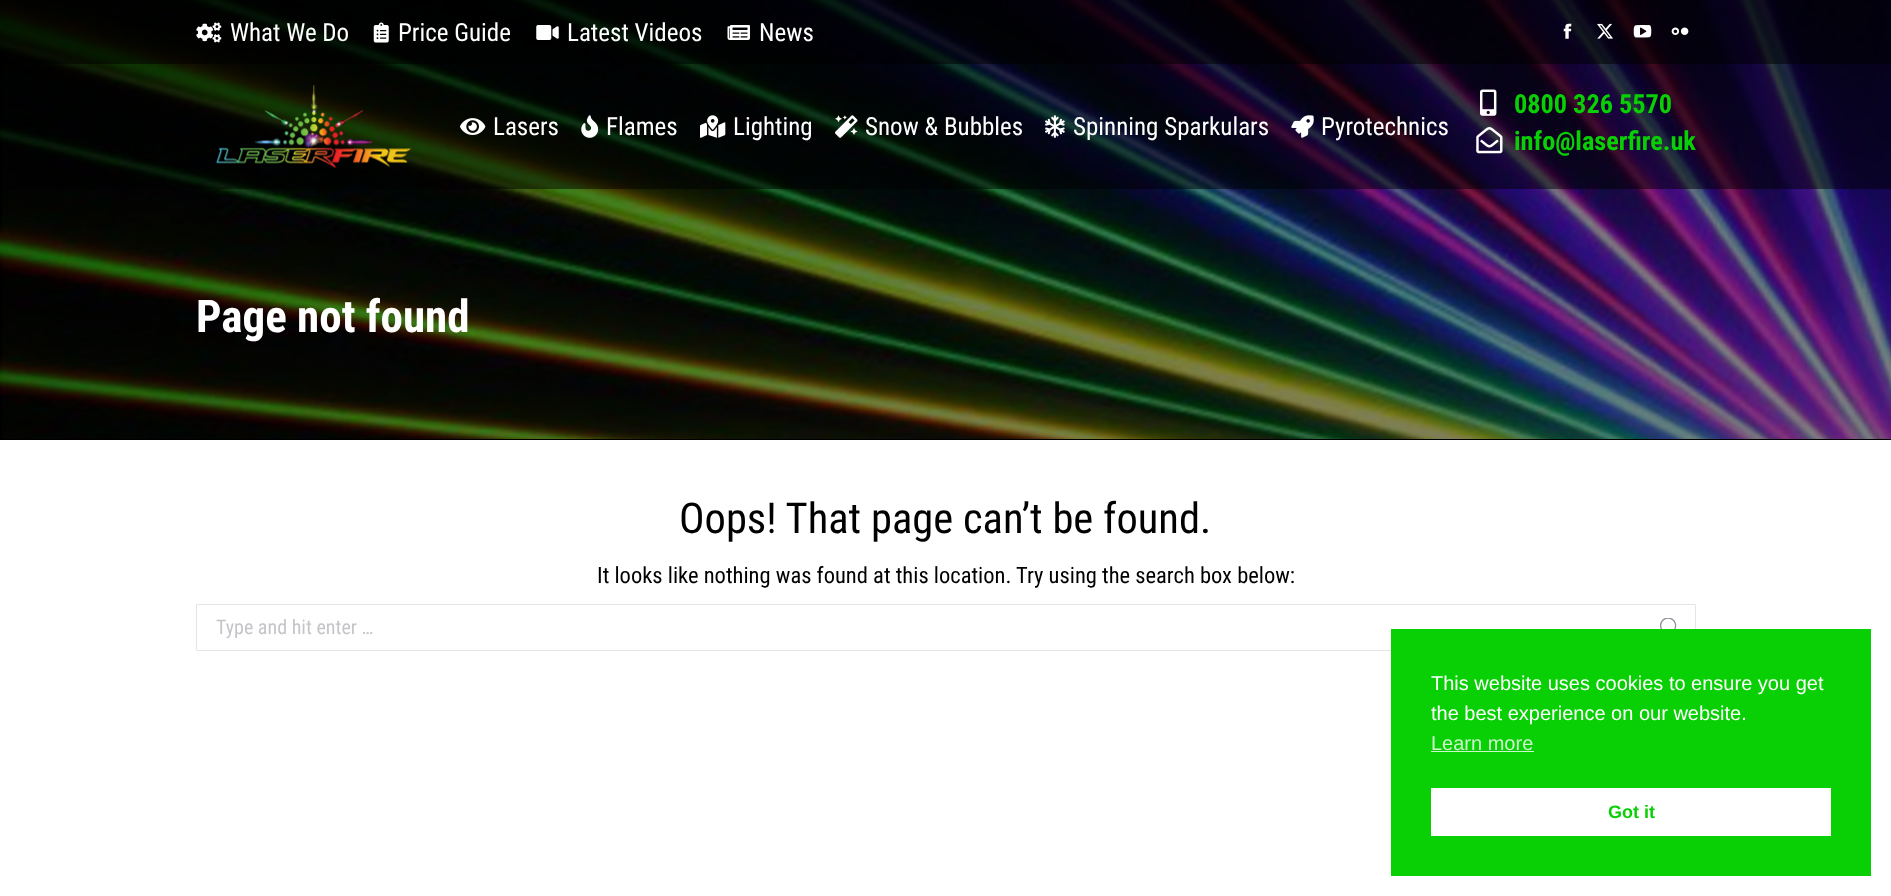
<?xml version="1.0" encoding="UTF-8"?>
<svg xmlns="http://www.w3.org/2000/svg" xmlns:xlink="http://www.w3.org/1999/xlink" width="1891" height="896">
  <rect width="100%" height="100%" fill="#ffffff" />
  <image x="0" y="0" width="1891" height="439" xlink:href="image18.png" />
  <rect width="1891" height="189" fill="#000000" fill-opacity="0.5" />
  <rect width="1891" height="64" fill="#000000" fill-opacity="0.5" />
  <image x="196" y="22" width="26" height="21" xlink:href="image1.png" />
  <image x="373" y="22" width="16" height="21" xlink:href="image2.png" />
  <image x="536" y="25" width="23" height="15" xlink:href="image3.png" />
  <image x="727" y="25" width="23" height="15" xlink:href="image4.png" />
  <image x="1563" y="23" width="9" height="16" xlink:href="image5.png" />
  <image x="1597" y="23" width="16" height="16" xlink:href="image6.png" />
  <image x="1633" y="25" width="19" height="13" xlink:href="image7.png" />
  <image x="1671" y="27" width="18" height="8" xlink:href="image8.png" />
  <image x="216" y="85" width="196" height="83" xlink:href="image9.png" />
  <image x="460" y="118" width="26" height="17" xlink:href="image10.png" />
  <image x="581" y="115" width="18" height="23" xlink:href="image11.png" />
  <image x="700" y="115" width="26" height="23" xlink:href="image12.png" />
  <image x="835" y="115" width="23" height="23" xlink:href="image13.png" />
  <image x="1045" y="115" width="20" height="23" xlink:href="image14.png" />
  <image x="1291" y="115" width="23" height="23" xlink:href="image15.png" />
  <image x="1480" y="89" width="17" height="27" xlink:href="image16.png" />
  <image x="1476" y="127" width="27" height="27" xlink:href="image17.png" />
  <rect y="439" width="1891" height="1" fill="#000000" />
  <rect x="196.5" y="604.5" width="1499" height="46" rx="0.5" fill="none" stroke="#e5e5e5" />
  <image x="1660" y="618" width="17" height="11" xlink:href="image19.png" />
  <rect x="1391" y="629" width="480" height="247" fill="#09d005" />
  <rect x="1431" y="751" width="103" height="1" fill="#cef6cd" />
  <rect x="1431" y="788" width="400" height="48" fill="#ffffff" />
  <text x="230" y="41" style="font-family: Roboto Condensed; font-size: 25px; fill: #ffffff">What We Do</text>
  <text x="398" y="41" style="font-family: Roboto Condensed; font-size: 25px; fill: #ffffff">Price Guide</text>
  <text x="567" y="41" style="font-family: Roboto Condensed; font-size: 25px; fill: #ffffff">Latest Videos</text>
  <text x="759" y="41" style="font-family: Roboto Condensed; font-size: 25px; fill: #ffffff">News</text>
  <text x="493" y="135" style="font-family: Roboto Condensed; font-size: 25px; fill: #ffffff">Lasers</text>
  <text x="606" y="135" style="font-family: Roboto Condensed; font-size: 25px; fill: #ffffff">Flames</text>
  <text x="733" y="135" style="font-family: Roboto Condensed; font-size: 25px; fill: #ffffff">Lighting</text>
  <text x="865" y="135" style="font-family: Roboto Condensed; font-size: 25px; fill: #ffffff">Snow &amp; Bubbles</text>
  <text x="1073" y="135" style="font-family: Roboto Condensed; font-size: 25px; fill: #ffffff">Spinning Sparkulars</text>
  <text x="1321" y="135" style="font-family: Roboto Condensed; font-size: 25px; fill: #ffffff">Pyrotechnics</text>
  <text x="1514" y="113" style="font-family: Roboto Condensed; font-size: 26.25px; font-weight: bold; fill: #09d005">0800 326 5570</text>
  <text x="1514" y="150" style="font-family: Roboto Condensed; font-size: 26.25px; font-weight: bold; fill: #09d005">info@laserfire.uk</text>
  <text x="196" y="332" style="font-family: Roboto Condensed; font-size: 45px; font-weight: bold; fill: #ffffff">Page not found</text>
  <text x="679" y="533" style="font-family: Roboto Condensed; font-size: 42.5px; fill: #000000">Oops! That page can’t be found.</text>
  <text x="597" y="583" style="font-family: Roboto Condensed; font-size: 22.5px; fill: #000000">It looks like nothing was found at this location. Try using the search box below:</text>
  <text x="216" y="634" style="font-family: Roboto Condensed; font-size: 20px; fill: #c4c5c9">Type and hit enter …</text>
  <text x="1431" y="690" style="font-family: Liberation Sans; font-size: 20px; fill: #ffffff">This website uses cookies to ensure you get</text>
  <text x="1431" y="720" style="font-family: Liberation Sans; font-size: 20px; fill: #ffffff">the best experience on our website.</text>
  <text x="1431" y="750" style="font-family: Liberation Sans; font-size: 20px; fill: #cef6cd">Learn more</text>
  <text x="1608" y="818" style="font-family: Liberation Sans; font-size: 18px; font-weight: bold; fill: #09d005">Got it</text>
</svg>
